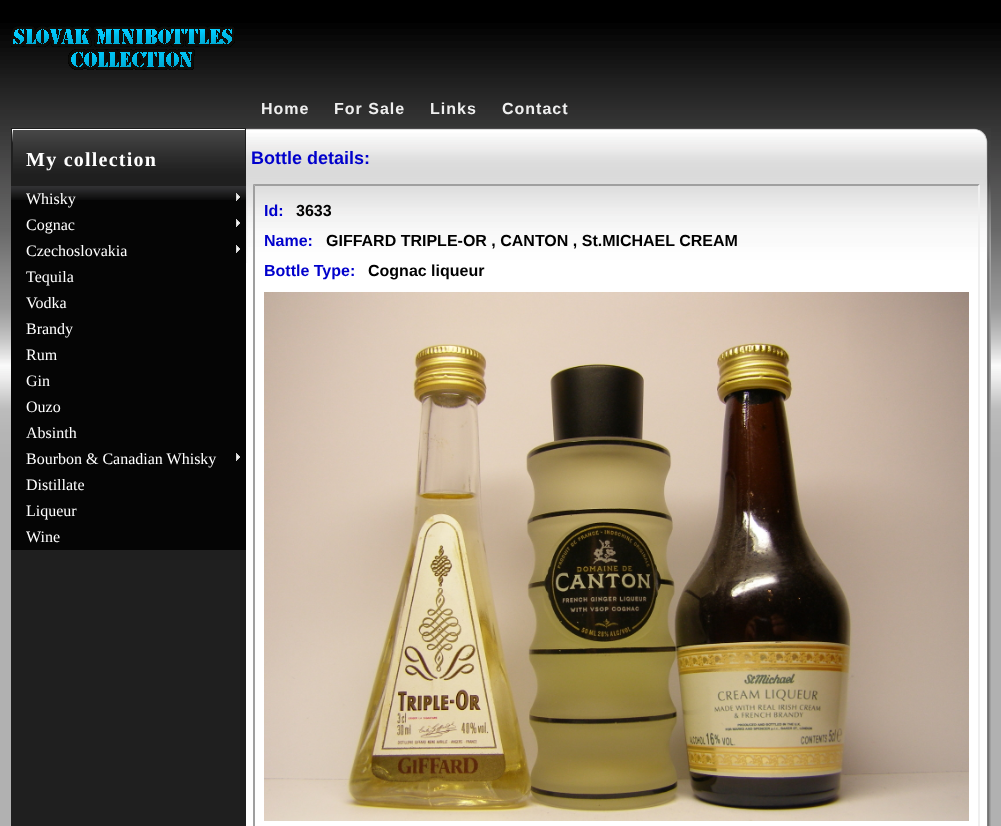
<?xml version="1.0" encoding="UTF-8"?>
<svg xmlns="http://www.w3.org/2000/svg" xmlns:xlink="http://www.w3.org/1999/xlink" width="1001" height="826">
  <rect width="100%" height="100%" fill="#ffffff" />
  <image x="0" y="0" width="1001" height="826" xlink:href="image1.png" />
  <image x="11" y="26" width="224" height="44" xlink:href="image2.png" />
  <image x="11" y="128" width="980" height="698" xlink:href="image3.png" />
  <image x="12" y="128" width="979" height="135" xlink:href="image4.png" />
  <rect x="11" y="200" width="235" height="350" fill="#050505" />
  <image x="11" y="186" width="235" height="14" xlink:href="image5.png" />
  <image x="236" y="193" width="5" height="8" xlink:href="image6.png" />
  <image x="236" y="219" width="4" height="8" xlink:href="image7.png" />
  <image x="236" y="245" width="4" height="8" xlink:href="image7.png" />
  <image x="236" y="453" width="4" height="8" xlink:href="image7.png" />
  <path d="M 253 184 h 727 l -2 2 h -723 z" fill="#9f9f9f" />
  <path d="M 980 184 v 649 l -2 -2 v -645 z" fill="#efefef" />
  <path d="M 253 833 v -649 l 2 2 v 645 z" fill="#9f9f9f" />
  <image x="264" y="292" width="705" height="529" xlink:href="image8.png" />
  <text x="261" y="114" style="font-family: Liberation Sans; font-size: 16px; font-weight: bold; letter-spacing: 1px; fill: #efefef">Home</text>
  <text x="334" y="114" style="font-family: Liberation Sans; font-size: 16px; font-weight: bold; letter-spacing: 1px; fill: #efefef">For Sale</text>
  <text x="430" y="114" style="font-family: Liberation Sans; font-size: 16px; font-weight: bold; letter-spacing: 1px; fill: #efefef">Links</text>
  <text x="502" y="114" style="font-family: Liberation Sans; font-size: 16px; font-weight: bold; letter-spacing: 1px; fill: #efefef">Contact</text>
  <text x="26" y="166" style="font-family: Liberation Serif; font-size: 20px; font-weight: bold; letter-spacing: 1.25px; fill: #ffffff">My collection</text>
  <text x="26" y="204" style="font-family: Liberation Serif; font-size: 16px; fill: #ffffff">Whisky</text>
  <text x="26" y="230" style="font-family: Liberation Serif; font-size: 16px; fill: #ffffff">Cognac</text>
  <text x="26" y="256" style="font-family: Liberation Serif; font-size: 16px; fill: #ffffff">Czechoslovakia</text>
  <text x="26" y="282" style="font-family: Liberation Serif; font-size: 16px; fill: #ffffff">Tequila</text>
  <text x="26" y="308" style="font-family: Liberation Serif; font-size: 16px; fill: #ffffff">Vodka</text>
  <text x="26" y="334" style="font-family: Liberation Serif; font-size: 16px; fill: #ffffff">Brandy</text>
  <text x="26" y="360" style="font-family: Liberation Serif; font-size: 16px; fill: #ffffff">Rum</text>
  <text x="26" y="386" style="font-family: Liberation Serif; font-size: 16px; fill: #ffffff">Gin</text>
  <text x="26" y="412" style="font-family: Liberation Serif; font-size: 16px; fill: #ffffff">Ouzo</text>
  <text x="26" y="438" style="font-family: Liberation Serif; font-size: 16px; fill: #ffffff">Absinth</text>
  <text x="26" y="464" style="font-family: Liberation Serif; font-size: 16px; fill: #ffffff">Bourbon &amp; Canadian Whisky</text>
  <text x="26" y="490" style="font-family: Liberation Serif; font-size: 16px; fill: #ffffff">Distillate</text>
  <text x="26" y="516" style="font-family: Liberation Serif; font-size: 16px; fill: #ffffff">Liqueur</text>
  <text x="26" y="542" style="font-family: Liberation Serif; font-size: 16px; fill: #ffffff">Wine</text>
  <text x="251" y="164" style="font-family: Liberation Sans; font-size: 18px; font-weight: bold; fill: #0000cc">Bottle details:</text>
  <text x="264" y="216" style="font-family: Liberation Sans; font-size: 16px; font-weight: bold; fill: #0000cc">Id:</text>
  <text x="296" y="216" style="font-family: Liberation Sans; font-size: 16px; font-weight: bold; fill: #000000">3633</text>
  <text x="264" y="246" style="font-family: Liberation Sans; font-size: 16px; font-weight: bold; fill: #0000cc">Name:</text>
  <text x="326" y="246" style="font-family: Liberation Sans; font-size: 16px; font-weight: bold; fill: #000000">GIFFARD TRIPLE-OR , CANTON , St.MICHAEL CREAM</text>
  <text x="264" y="276" style="font-family: Liberation Sans; font-size: 16px; font-weight: bold; fill: #0000cc">Bottle Type:</text>
  <text x="368" y="276" style="font-family: Liberation Sans; font-size: 16px; font-weight: bold; fill: #000000">Cognac liqueur</text>
</svg>
